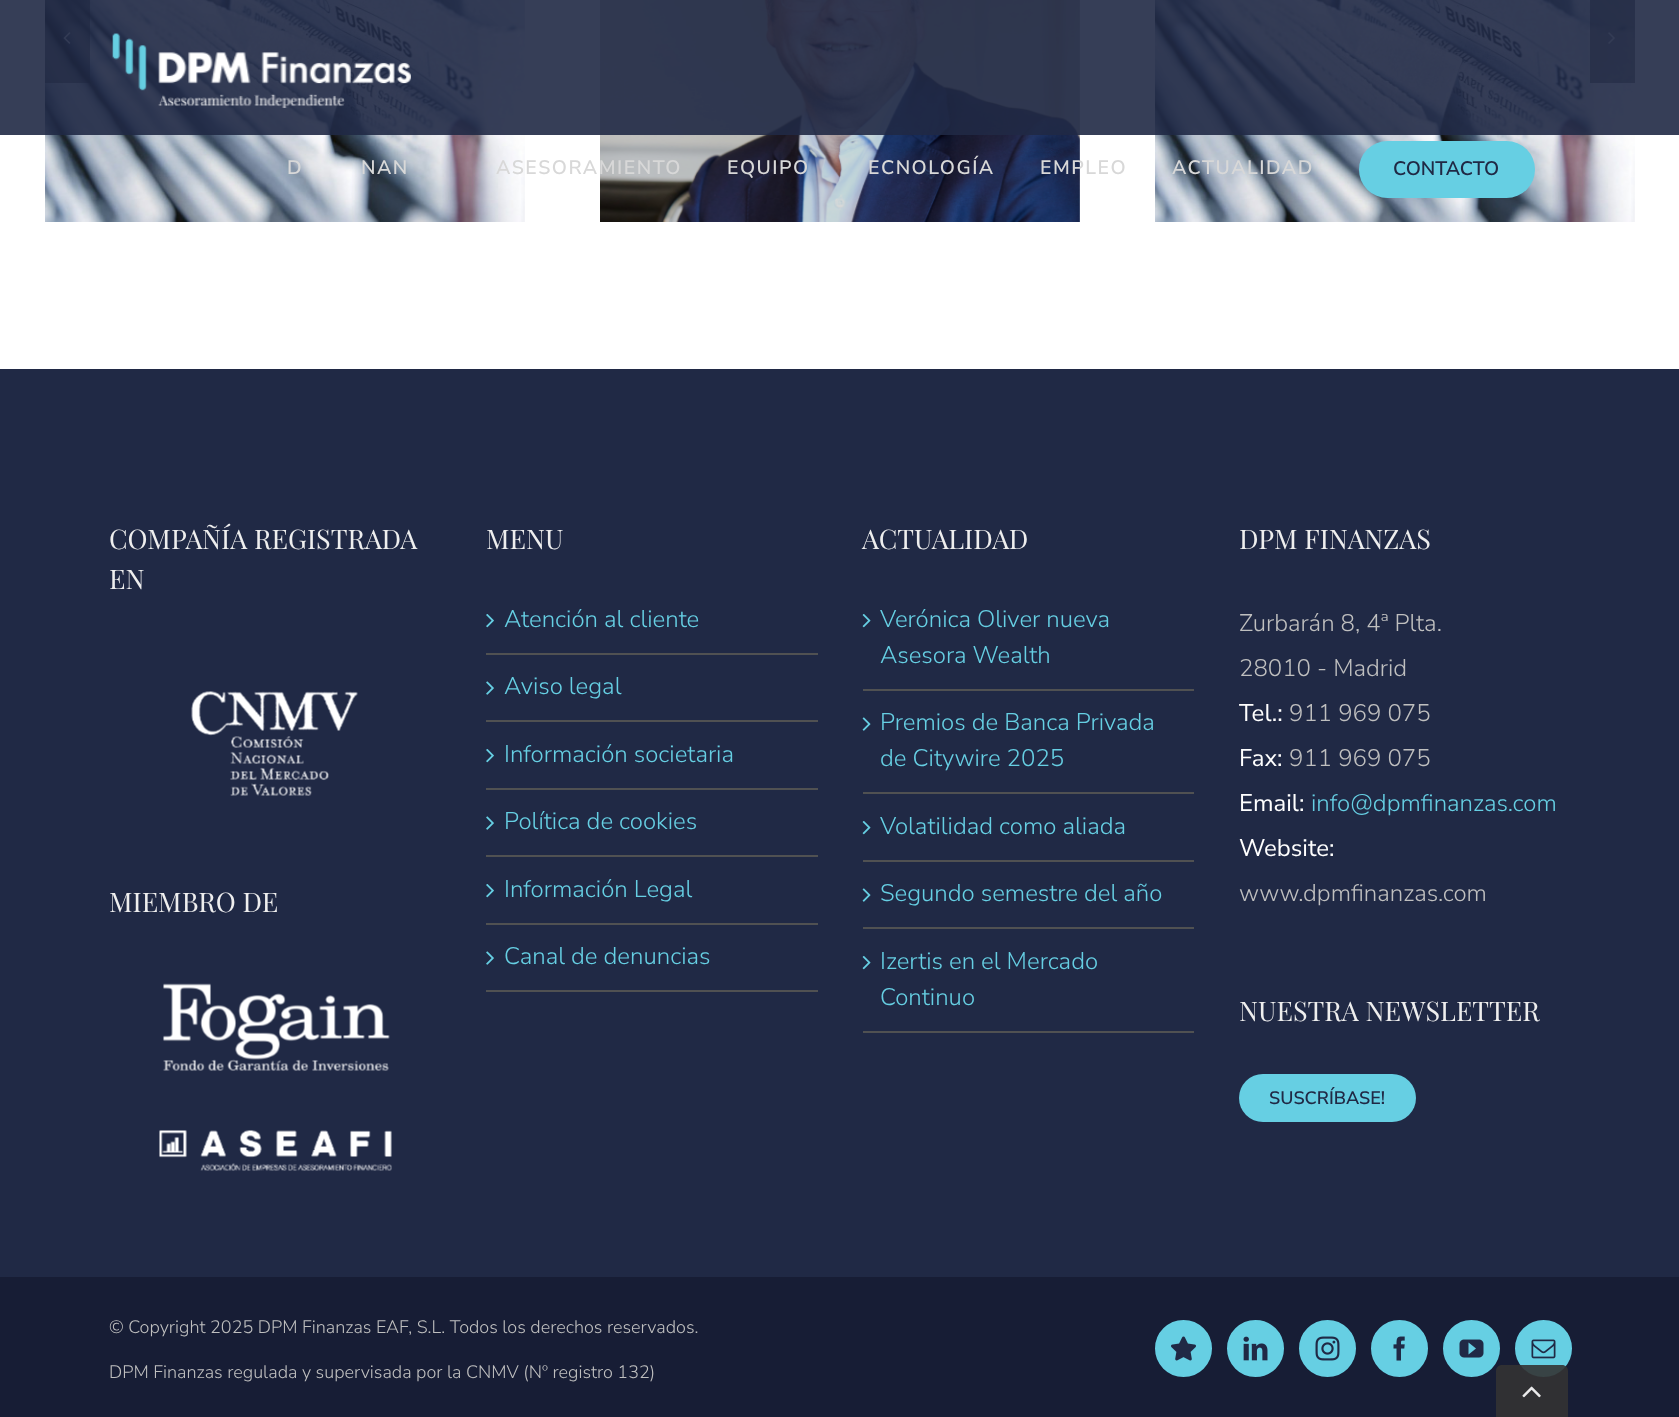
<?xml version="1.0" encoding="UTF-8"?>
<svg xmlns="http://www.w3.org/2000/svg" xmlns:xlink="http://www.w3.org/1999/xlink" width="1679" height="1417">
  <rect width="100%" height="100%" fill="#ffffff" />
  <image x="45" y="0" width="480" height="222" xlink:href="image1.png" />
  <image x="600" y="0" width="480" height="222" xlink:href="image2.png" />
  <image x="1155" y="0" width="480" height="222" xlink:href="image1.png" />
  <rect x="45" width="45" height="83" fill="#000000" fill-opacity="0.48" />
  <image x="63" y="32" width="8" height="12" xlink:href="image3.png" />
  <rect x="1590" width="45" height="83" fill="#000000" fill-opacity="0.48" />
  <image x="1608" y="32" width="7" height="12" xlink:href="image4.png" />
  <rect width="1679" height="135" fill="#202945" fill-opacity="0.9" />
  <image x="112" y="33" width="299" height="75" xlink:href="image5.png" />
  <rect x="1359" y="141" width="176" height="57" rx="28.5" fill="#66cfe3" />
  <rect y="369" width="1679" height="908" fill="#202945" />
  <image x="191" y="691" width="167" height="105" xlink:href="image6.png" />
  <image x="163" y="983" width="227" height="88" xlink:href="image7.png" />
  <image x="159" y="1130" width="233" height="41" xlink:href="image8.png" />
  <rect x="486" y="653" width="332" height="2" fill="#505152" />
  <image x="486" y="614" width="8" height="14" xlink:href="image9.png" />
  <rect x="486" y="720" width="332" height="2" fill="#505152" />
  <image x="486" y="681" width="8" height="14" xlink:href="image10.png" />
  <rect x="486" y="788" width="332" height="2" fill="#505152" />
  <image x="486" y="749" width="8" height="14" xlink:href="image9.png" />
  <rect x="486" y="855" width="332" height="2" fill="#505152" />
  <image x="486" y="816" width="8" height="14" xlink:href="image10.png" />
  <rect x="486" y="923" width="332" height="2" fill="#505152" />
  <image x="486" y="884" width="8" height="14" xlink:href="image9.png" />
  <rect x="486" y="990" width="332" height="2" fill="#505152" />
  <image x="486" y="951" width="8" height="14" xlink:href="image10.png" />
  <rect x="863" y="689" width="331" height="2" fill="#505152" />
  <image x="862" y="614" width="9" height="14" xlink:href="image11.png" />
  <rect x="863" y="792" width="331" height="2" fill="#505152" />
  <image x="862" y="717" width="9" height="14" xlink:href="image12.png" />
  <rect x="863" y="860" width="331" height="2" fill="#505152" />
  <image x="862" y="821" width="9" height="14" xlink:href="image11.png" />
  <rect x="863" y="927" width="331" height="2" fill="#505152" />
  <image x="862" y="888" width="9" height="14" xlink:href="image12.png" />
  <rect x="863" y="1031" width="331" height="2" fill="#505152" />
  <image x="862" y="956" width="9" height="14" xlink:href="image11.png" />
  <rect x="1239" y="1074" width="177" height="48" rx="24" fill="#66cfe3" />
  <rect y="1277" width="1679" height="140" fill="#171d35" />
  <circle cx="1183.5" cy="1348.5" r="27.5" fill="#66cfe3" stroke="#66cfe3" stroke-width="2" />
  <image x="1171" y="1336" width="25" height="25" xlink:href="image13.png" />
  <circle cx="1255.5" cy="1348.5" r="27.5" fill="#66cfe3" stroke="#66cfe3" stroke-width="2" />
  <image x="1243" y="1336" width="25" height="25" xlink:href="image14.png" />
  <circle cx="1327.5" cy="1348.5" r="27.5" fill="#66cfe3" stroke="#66cfe3" stroke-width="2" />
  <image x="1315" y="1336" width="25" height="25" xlink:href="image15.png" />
  <circle cx="1399.5" cy="1348.5" r="27.5" fill="#66cfe3" stroke="#66cfe3" stroke-width="2" />
  <image x="1393" y="1336" width="12" height="25" xlink:href="image16.png" />
  <circle cx="1471.5" cy="1348.5" r="27.5" fill="#66cfe3" stroke="#66cfe3" stroke-width="2" />
  <image x="1459" y="1339" width="25" height="19" xlink:href="image17.png" />
  <circle cx="1543.5" cy="1348.5" r="27.5" fill="#66cfe3" stroke="#66cfe3" stroke-width="2" />
  <image x="1531" y="1339" width="25" height="20" xlink:href="image18.png" />
  <path d="M 1502 1365 h 60 c 3.5 0 6 2.5 6 6 v 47 h -72 v -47 c 0 -3.5 2.5 -6 6 -6 z" fill="#333333" fill-opacity="0.9" />
  <image x="1522" y="1386" width="19" height="12" xlink:href="image19.png" />
  <text x="287" y="174" style="font-family: Nunito Sans; font-size: 19.5px; font-weight: 600; letter-spacing: 1.5px; fill: #d8d8d8">D</text>
  <text x="361" y="174" style="font-family: Nunito Sans; font-size: 19.5px; font-weight: 600; letter-spacing: 1.5px; fill: #d8d8d8">NAN</text>
  <text x="496" y="174" style="font-family: Nunito Sans; font-size: 19.5px; font-weight: 600; letter-spacing: 1.5px; fill: #d8d8d8">ASESORAMIENTO</text>
  <text x="727" y="174" style="font-family: Nunito Sans; font-size: 19.5px; font-weight: 600; letter-spacing: 1.5px; fill: #d8d8d8">EQUIPO</text>
  <text x="868" y="174" style="font-family: Nunito Sans; font-size: 19.5px; font-weight: 600; letter-spacing: 1.5px; fill: #d8d8d8">ECNOLOGÍA</text>
  <text x="1040" y="174" style="font-family: Nunito Sans; font-size: 19.5px; font-weight: 600; letter-spacing: 1.5px; fill: #d8d8d8">EMPLEO</text>
  <text x="1172" y="174" style="font-family: Nunito Sans; font-size: 19.5px; font-weight: 600; letter-spacing: 1.5px; fill: #d8d8d8">ACTUALIDAD</text>
  <text x="1393" y="175" style="font-family: Nunito Sans; font-size: 19.5px; font-weight: 600; fill: #202945">CONTACTO</text>
  <text x="109" y="549" style="font-family: Playfair Display; font-size: 27px; fill: #eeeeee">COMPAÑÍA REGISTRADA</text>
  <text x="109" y="589" style="font-family: Playfair Display; font-size: 27px; fill: #eeeeee">EN</text>
  <text x="109" y="912" style="font-family: Playfair Display; font-size: 27px; fill: #eeeeee">MIEMBRO DE</text>
  <text x="486" y="549" style="font-family: Playfair Display; font-size: 27px; fill: #eeeeee">MENU</text>
  <text x="504" y="627" style="font-family: Nunito Sans; font-size: 24px; font-weight: 300; fill: #66cfe3">Atención al cliente</text>
  <text x="504" y="694" style="font-family: Nunito Sans; font-size: 24px; font-weight: 300; fill: #66cfe3">Aviso legal</text>
  <text x="504" y="762" style="font-family: Nunito Sans; font-size: 24px; font-weight: 300; fill: #66cfe3">Información societaria</text>
  <text x="504" y="829" style="font-family: Nunito Sans; font-size: 24px; font-weight: 300; fill: #66cfe3">Política de cookies</text>
  <text x="504" y="897" style="font-family: Nunito Sans; font-size: 24px; font-weight: 300; fill: #66cfe3">Información Legal</text>
  <text x="504" y="964" style="font-family: Nunito Sans; font-size: 24px; font-weight: 300; fill: #66cfe3">Canal de denuncias</text>
  <text x="862" y="549" style="font-family: Playfair Display; font-size: 27px; fill: #eeeeee">ACTUALIDAD</text>
  <text x="880" y="627" style="font-family: Nunito Sans; font-size: 24px; font-weight: 300; fill: #66cfe3">Verónica Oliver nueva</text>
  <text x="880" y="663" style="font-family: Nunito Sans; font-size: 24px; font-weight: 300; fill: #66cfe3">Asesora Wealth</text>
  <text x="880" y="730" style="font-family: Nunito Sans; font-size: 24px; font-weight: 300; fill: #66cfe3">Premios de Banca Privada</text>
  <text x="880" y="766" style="font-family: Nunito Sans; font-size: 24px; font-weight: 300; fill: #66cfe3">de Citywire 2025</text>
  <text x="880" y="834" style="font-family: Nunito Sans; font-size: 24px; font-weight: 300; fill: #66cfe3">Volatilidad como aliada</text>
  <text x="880" y="901" style="font-family: Nunito Sans; font-size: 24px; font-weight: 300; fill: #66cfe3">Segundo semestre del año</text>
  <text x="880" y="969" style="font-family: Nunito Sans; font-size: 24px; font-weight: 300; fill: #66cfe3">Izertis en el Mercado</text>
  <text x="880" y="1005" style="font-family: Nunito Sans; font-size: 24px; font-weight: 300; fill: #66cfe3">Continuo</text>
  <text x="1239" y="549" style="font-family: Playfair Display; font-size: 27px; fill: #eeeeee">DPM FINANZAS</text>
  <text x="1239" y="631" style="font-family: Nunito Sans; font-size: 24px; font-weight: 300; fill: #bfbfbf">Zurbarán 8, 4ª Plta.</text>
  <text x="1239" y="676" style="font-family: Nunito Sans; font-size: 24px; font-weight: 300; fill: #bfbfbf">28010 - Madrid</text>
  <text x="1239" y="721" style="font-family: Nunito Sans; font-size: 24px; fill: #ffffff">Tel.:</text>
  <text x="1289" y="721" style="font-family: Nunito Sans; font-size: 24px; font-weight: 300; fill: #bfbfbf">911 969 075</text>
  <text x="1239" y="766" style="font-family: Nunito Sans; font-size: 24px; fill: #ffffff">Fax:</text>
  <text x="1289" y="766" style="font-family: Nunito Sans; font-size: 24px; font-weight: 300; fill: #bfbfbf">911 969 075</text>
  <text x="1239" y="811" style="font-family: Nunito Sans; font-size: 24px; fill: #ffffff">Email:</text>
  <text x="1311" y="811" style="font-family: Nunito Sans; font-size: 24px; font-weight: 300; fill: #66cfe3">info@dpmfinanzas.com</text>
  <text x="1239" y="856" style="font-family: Nunito Sans; font-size: 24px; fill: #ffffff">Website:</text>
  <text x="1239" y="901" style="font-family: Nunito Sans; font-size: 24px; font-weight: 300; fill: #bfbfbf">www.dpmfinanzas.com</text>
  <text x="1239" y="1021" style="font-family: Playfair Display; font-size: 27px; fill: #eeeeee">NUESTRA NEWSLETTER</text>
  <text x="1269" y="1104" style="font-family: Nunito Sans; font-size: 18px; font-weight: 600; fill: #202945">SUSCRÍBASE!</text>
  <text x="109" y="1333" style="font-family: Nunito Sans; font-size: 18px; font-weight: 300; fill: #bfbfbf">© Copyright 2025 DPM Finanzas EAF, S.L. Todos los derechos reservados.</text>
  <text x="109" y="1378" style="font-family: Nunito Sans; font-size: 18px; font-weight: 300; fill: #bfbfbf">DPM Finanzas regulada y supervisada por la CNMV (Nº registro 132)</text>
</svg>
